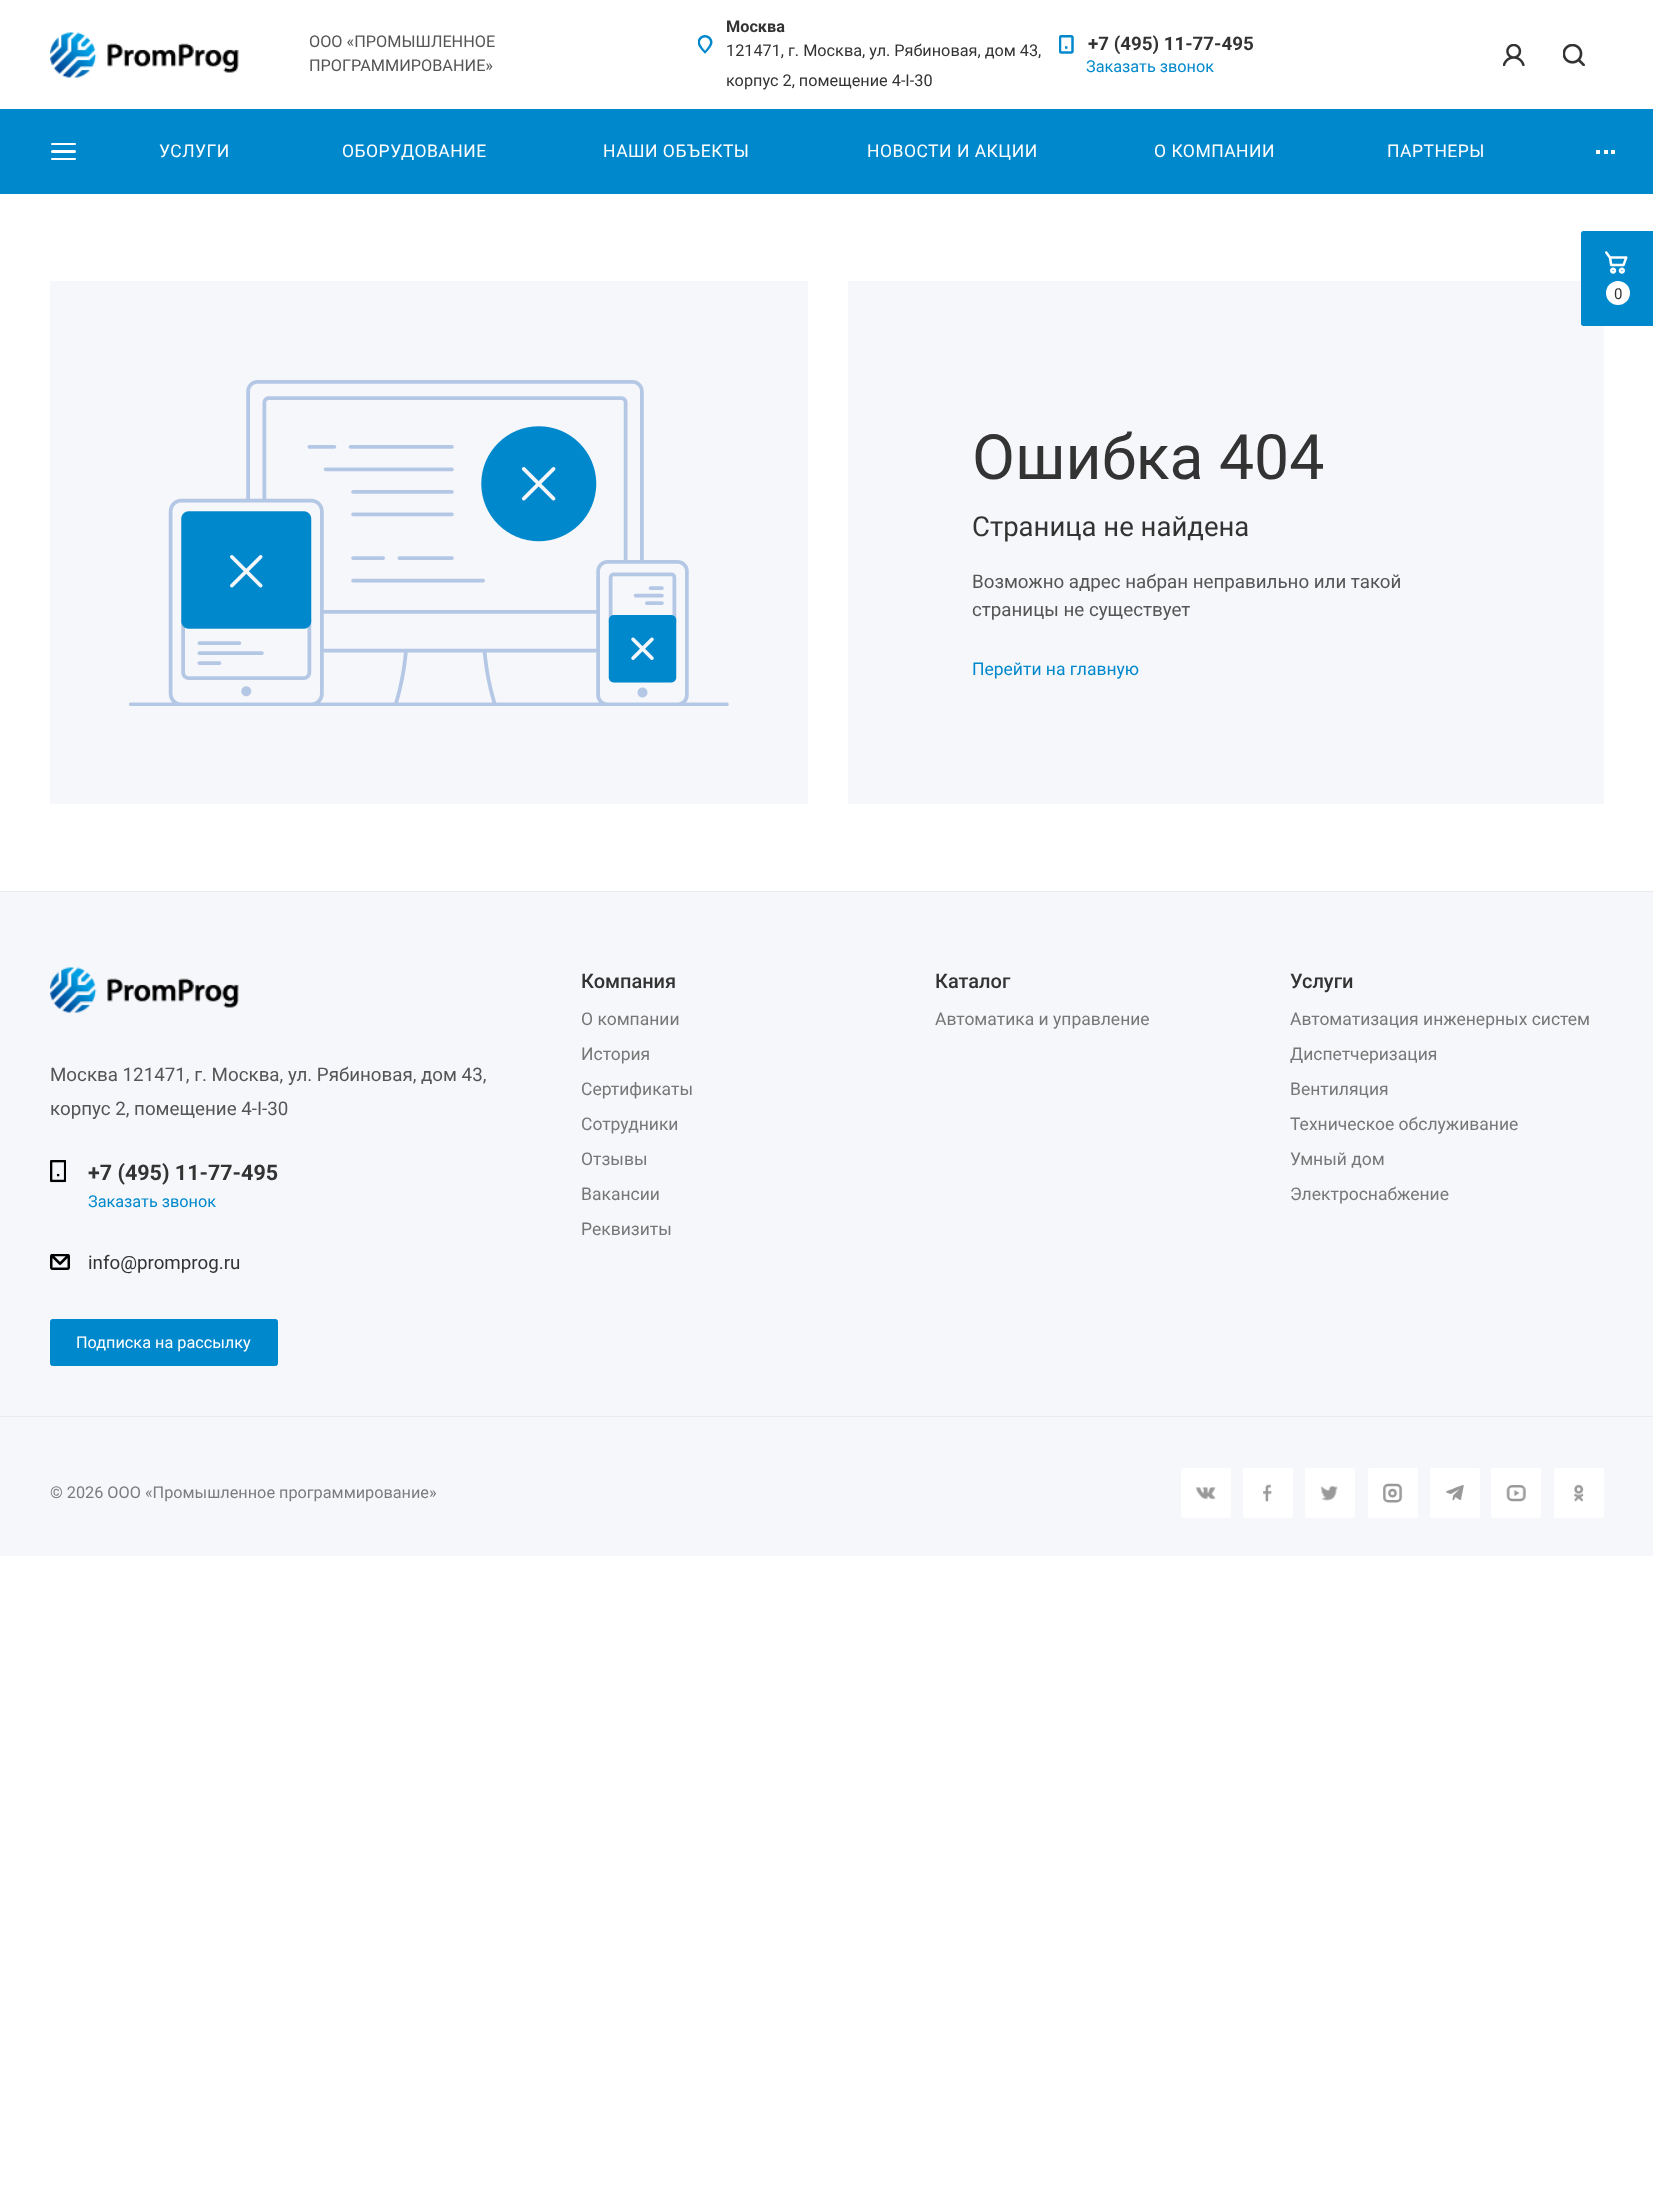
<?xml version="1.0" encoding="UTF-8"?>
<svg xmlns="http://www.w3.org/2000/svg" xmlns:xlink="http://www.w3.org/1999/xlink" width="1653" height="2196">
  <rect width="100%" height="100%" fill="#ffffff" />
  <image x="50" y="32" width="189" height="46" xlink:href="image1.png" />
  <image x="698" y="35" width="15" height="19" xlink:href="image2.png" />
  <image x="1059" y="35" width="15" height="19" xlink:href="image3.png" />
  <image x="1503" y="44" width="22" height="22" xlink:href="image4.png" />
  <image x="1563" y="44" width="22" height="22" xlink:href="image5.png" />
  <rect y="109" width="1653" height="85" fill="#0088cc" />
  <rect x="51" y="143" width="25" height="2" rx="1" fill="#ffffff" />
  <rect x="51" y="150" width="25" height="3" rx="1.5" fill="#ffffff" />
  <rect x="51" y="158" width="25" height="2" rx="1" fill="#ffffff" />
  <rect x="1596" y="150" width="4" height="4" fill="#ffffff" />
  <rect x="1604" y="150" width="4" height="4" fill="#ffffff" />
  <rect x="1611" y="150" width="4" height="4" fill="#ffffff" />
  <rect x="848" y="281" width="756" height="523" fill="#f6f7fa" />
  <path d="M 1583.5 231 h 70.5 v 95 h -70.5 c -1.5 0 -2.5 -1 -2.5 -2.5 v -90 c 0 -1.5 1 -2.5 2.5 -2.5 z" fill="#0088cc" />
  <image x="1605" y="251" width="23" height="23" xlink:href="image6.png" />
  <circle cx="1618" cy="293" r="12" fill="#ffffff" />
  <rect x="50" y="281" width="758" height="523" fill="#f6f7fa" />
  <image x="129" y="380" width="600" height="326" xlink:href="image7.png" />
  <rect y="892" width="1653" height="664" fill="#f6f7fa" />
  <rect y="891" width="1653" height="1" fill="#ebebef" />
  <image x="50" y="967" width="189" height="46" xlink:href="image8.png" />
  <image x="50" y="1160" width="16" height="23" xlink:href="image9.png" />
  <image x="50" y="1254" width="20" height="16" xlink:href="image10.png" />
  <rect x="50.5" y="1319.5" width="227" height="46" rx="2" fill="#0088cc" stroke="#0088cc" />
  <rect y="1416" width="1653" height="1" fill="#ebebef" />
  <rect x="1181" y="1468" width="50" height="50" rx="2.5" fill="#ffffff" />
  <image x="1195" y="1487" width="21" height="13" xlink:href="image11.png" />
  <rect x="1243" y="1468" width="50" height="50" rx="2.5" fill="#ffffff" />
  <image x="1263" y="1484" width="9" height="18" xlink:href="image12.png" />
  <rect x="1305" y="1468" width="50" height="50" rx="2.5" fill="#ffffff" />
  <image x="1320" y="1485" width="18" height="16" xlink:href="image13.png" />
  <rect x="1368" y="1468" width="50" height="50" rx="2.5" fill="#ffffff" />
  <image x="1383" y="1483" width="20" height="20" xlink:href="image14.png" />
  <rect x="1430" y="1468" width="50" height="50" rx="2.5" fill="#ffffff" />
  <image x="1446" y="1485" width="18" height="16" xlink:href="image15.png" />
  <rect x="1491" y="1468" width="50" height="50" rx="2.5" fill="#ffffff" />
  <image x="1506" y="1485" width="20" height="17" xlink:href="image16.png" />
  <rect x="1554" y="1468" width="50" height="50" rx="2.5" fill="#ffffff" />
  <image x="1574" y="1484" width="10" height="18" xlink:href="image17.png" />
  <text x="309" y="47" style="font-family: Roboto; font-size: 16.25px; fill: #555555">ООО «ПРОМЫШЛЕННОЕ</text>
  <text x="309" y="71" style="font-family: Roboto; font-size: 16.25px; fill: #555555">ПРОГРАММИРОВАНИЕ»</text>
  <text x="726" y="32" style="font-family: Roboto; font-size: 16.25px; font-weight: bold; fill: #333333">Москва</text>
  <text x="726" y="56" style="font-family: Roboto; font-size: 16.25px; fill: #333333">121471, г. Москва, ул. Рябиновая, дом 43,</text>
  <text x="726" y="86" style="font-family: Roboto; font-size: 16.25px; fill: #333333">корпус 2, помещение 4-I-30</text>
  <text x="1088" y="50" style="font-family: Roboto; font-size: 18.75px; font-weight: bold; fill: #333333">+7 (495) 11-77-495</text>
  <text x="1086" y="72" style="font-family: Roboto; font-size: 16.25px; fill: #0088cc">Заказать звонок</text>
  <text x="159" y="157" style="font-family: Roboto; font-size: 17.5px; letter-spacing: 0.5px; fill: #ffffff">УСЛУГИ</text>
  <text x="342" y="157" style="font-family: Roboto; font-size: 17.5px; letter-spacing: 0.5px; fill: #ffffff">ОБОРУДОВАНИЕ</text>
  <text x="603" y="157" style="font-family: Roboto; font-size: 17.5px; letter-spacing: 0.5px; fill: #ffffff">НАШИ ОБЪЕКТЫ</text>
  <text x="867" y="157" style="font-family: Roboto; font-size: 17.5px; letter-spacing: 0.5px; fill: #ffffff">НОВОСТИ И АКЦИИ</text>
  <text x="1154" y="157" style="font-family: Roboto; font-size: 17.5px; letter-spacing: 0.5px; fill: #ffffff">О КОМПАНИИ</text>
  <text x="1387" y="157" style="font-family: Roboto; font-size: 17.5px; letter-spacing: 0.5px; fill: #ffffff">ПАРТНЕРЫ</text>
  <text x="1614" y="299" style="font-family: Roboto; font-size: 15px; fill: #333333">0</text>
  <text x="972" y="479" style="font-family: Roboto; font-size: 62.5px; fill: #333333">Ошибка 404</text>
  <text x="972" y="536" style="font-family: Roboto; font-size: 27.5px; fill: #333333">Страница не найдена</text>
  <text x="972" y="588" style="font-family: Roboto; font-size: 18.75px; fill: #555555">Возможно адрес набран неправильно или такой</text>
  <text x="972" y="616" style="font-family: Roboto; font-size: 18.75px; fill: #555555">страницы не существует</text>
  <text x="972" y="675" style="font-family: Roboto; font-size: 17.5px; fill: #0088cc">Перейти на главную</text>
  <text x="50" y="1081" style="font-family: Roboto; font-size: 18.75px; fill: #555555">Москва 121471, г. Москва, ул. Рябиновая, дом 43,</text>
  <text x="50" y="1115" style="font-family: Roboto; font-size: 18.75px; fill: #555555">корпус 2, помещение 4-I-30</text>
  <text x="88" y="1180" style="font-family: Roboto; font-size: 21.5px; font-weight: bold; fill: #333333">+7 (495) 11-77-495</text>
  <text x="88" y="1207" style="font-family: Roboto; font-size: 16.25px; fill: #0088cc">Заказать звонок</text>
  <text x="88" y="1269" style="font-family: Roboto; font-size: 18.75px; fill: #333333">info@promprog.ru</text>
  <text x="76" y="1348" style="font-family: Roboto; font-size: 16.25px; fill: #ffffff">Подписка на рассылку</text>
  <text x="581" y="988" style="font-family: Roboto; font-size: 20px; font-weight: 500; fill: #333333">Компания</text>
  <text x="581" y="1025" style="font-family: Roboto; font-size: 17.5px; fill: #777777">О компании</text>
  <text x="581" y="1060" style="font-family: Roboto; font-size: 17.5px; fill: #777777">История</text>
  <text x="581" y="1095" style="font-family: Roboto; font-size: 17.5px; fill: #777777">Сертификаты</text>
  <text x="581" y="1130" style="font-family: Roboto; font-size: 17.5px; fill: #777777">Сотрудники</text>
  <text x="581" y="1165" style="font-family: Roboto; font-size: 17.5px; fill: #777777">Отзывы</text>
  <text x="581" y="1200" style="font-family: Roboto; font-size: 17.5px; fill: #777777">Вакансии</text>
  <text x="581" y="1235" style="font-family: Roboto; font-size: 17.5px; fill: #777777">Реквизиты</text>
  <text x="935" y="988" style="font-family: Roboto; font-size: 20px; font-weight: 500; fill: #333333">Каталог</text>
  <text x="935" y="1025" style="font-family: Roboto; font-size: 17.5px; fill: #777777">Автоматика и управление</text>
  <text x="1290" y="988" style="font-family: Roboto; font-size: 20px; font-weight: 500; fill: #333333">Услуги</text>
  <text x="1290" y="1025" style="font-family: Roboto; font-size: 17.5px; fill: #777777">Автоматизация инженерных систем</text>
  <text x="1290" y="1060" style="font-family: Roboto; font-size: 17.5px; fill: #777777">Диспетчеризация</text>
  <text x="1290" y="1095" style="font-family: Roboto; font-size: 17.5px; fill: #777777">Вентиляция</text>
  <text x="1290" y="1130" style="font-family: Roboto; font-size: 17.5px; fill: #777777">Техническое обслуживание</text>
  <text x="1290" y="1165" style="font-family: Roboto; font-size: 17.5px; fill: #777777">Умный дом</text>
  <text x="1290" y="1200" style="font-family: Roboto; font-size: 17.5px; fill: #777777">Электроснабжение</text>
  <text x="50" y="1498" style="font-family: Roboto; font-size: 16.25px; fill: #7a7c7f">© 2026 ООО «Промышленное программирование»</text>
</svg>
